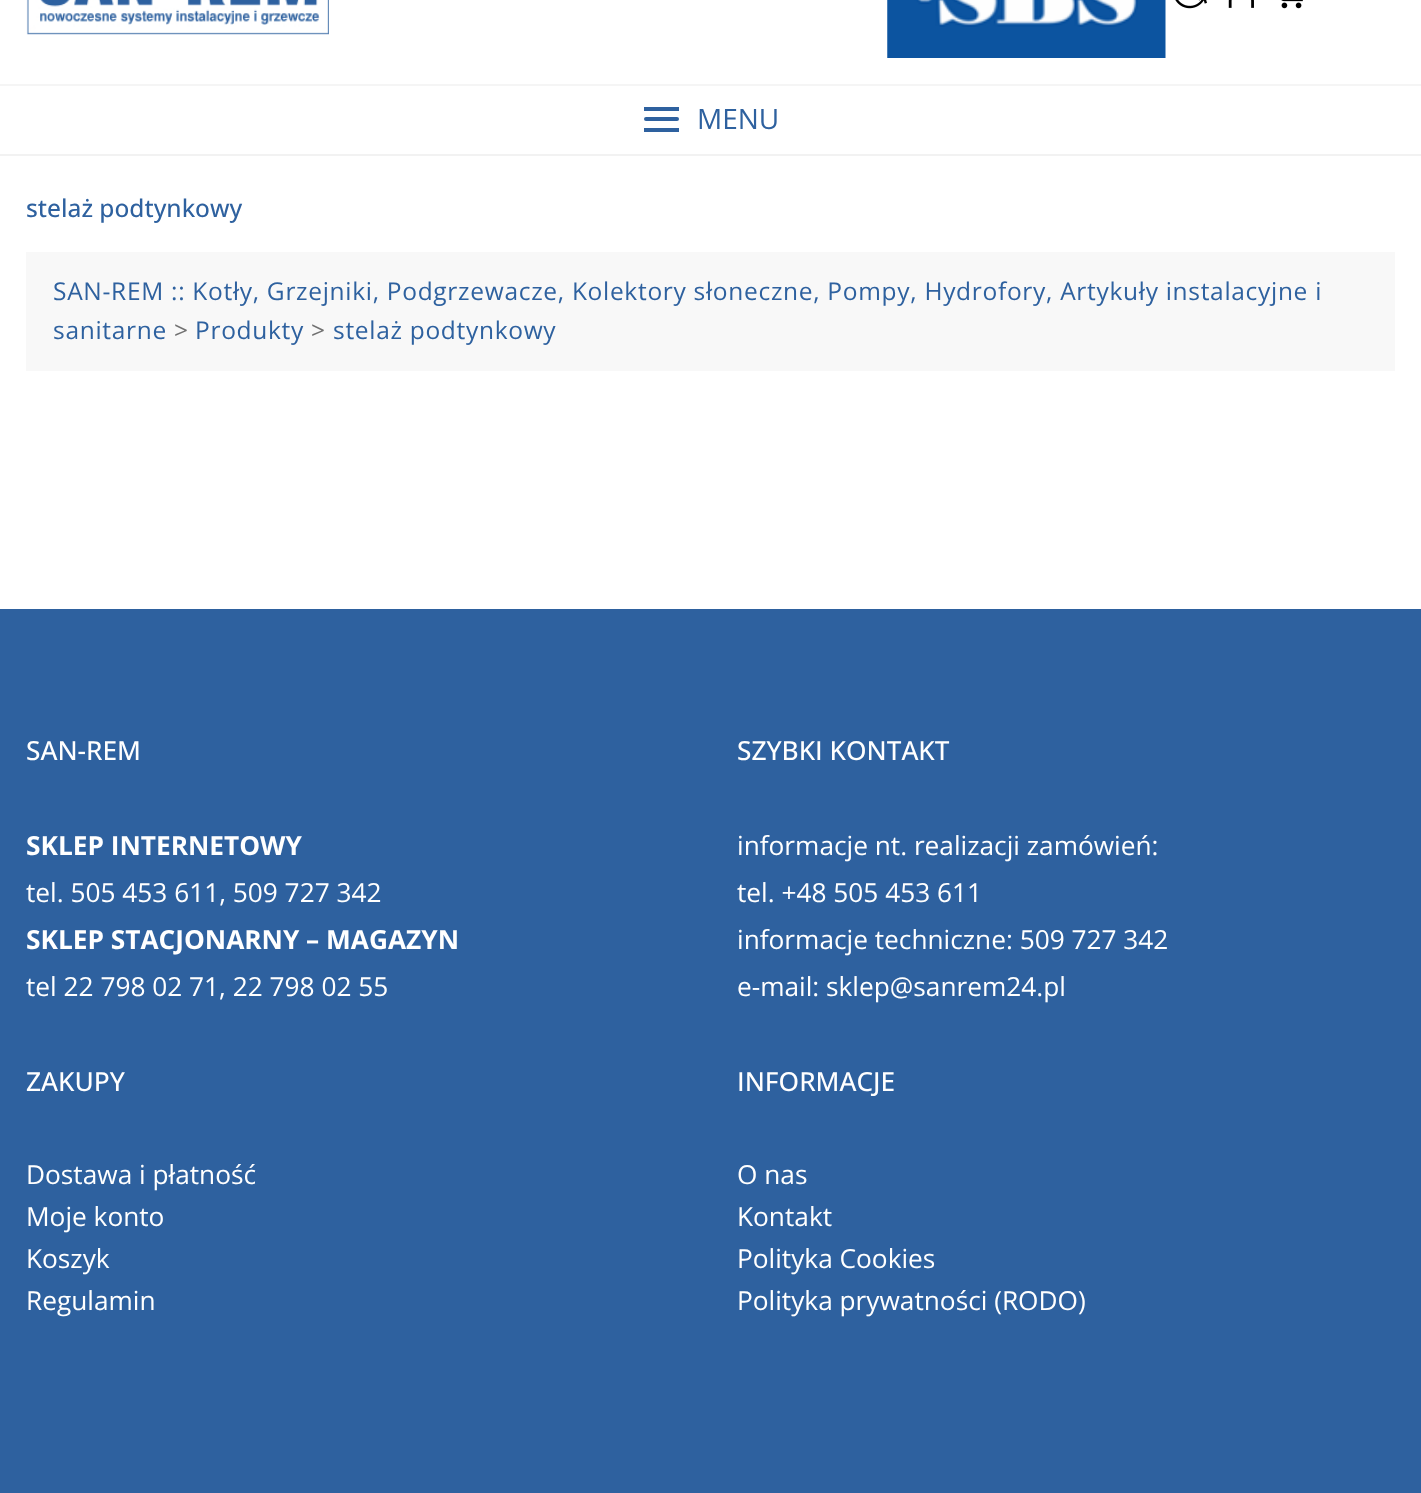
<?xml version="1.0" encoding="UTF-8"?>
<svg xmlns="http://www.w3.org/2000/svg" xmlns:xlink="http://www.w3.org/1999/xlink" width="1421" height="1493">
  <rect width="100%" height="100%" fill="#ffffff" />
  <rect y="84" width="1421" height="2" fill="#f5f5f5" />
  <image x="26" y="0" width="303" height="35" xlink:href="image1.png" />
  <image x="887" y="0" width="279" height="58" xlink:href="image2.png" />
  <image x="1175" y="0" width="32" height="9" xlink:href="image3.png" />
  <image x="1228" y="0" width="26" height="8" xlink:href="image4.png" />
  <image x="1281" y="0" width="22" height="9" xlink:href="image5.png" />
  <rect x="644" y="117" width="35" height="4" rx="2" fill="#2e619f" />
  <rect x="644" y="107" width="35" height="4" fill="#2e619f" />
  <rect x="644" y="128" width="35" height="4" fill="#2e619f" />
  <rect y="154" width="1421" height="2" fill="#f2f2f2" />
  <rect x="26" y="252" width="1369" height="119" fill="#f8f8f8" />
  <rect y="609" width="1421" height="884" fill="#2e619f" />
  <text x="697" y="129" style="font-family: Open Sans; font-size: 28px; fill: #2e619f">MENU</text>
  <text x="26" y="217" style="font-family: Open Sans; font-size: 24.5px; font-weight: 500; fill: #2e619f">stelaż podtynkowy</text>
  <text x="53" y="300" style="font-family: Open Sans; font-size: 24.5px; letter-spacing: 0.7px; fill: #2e619f">SAN-REM :: Kotły, Grzejniki, Podgrzewacze, Kolektory słoneczne, Pompy, Hydrofory, Artykuły instalacyjne i</text>
  <text x="53" y="339" style="font-family: Open Sans; font-size: 24.5px; letter-spacing: 0.7px; fill: #2e619f">sanitarne</text>
  <text x="174" y="339" style="font-family: Open Sans; font-size: 24.5px; letter-spacing: 0.7px; fill: #717171">&gt;</text>
  <text x="195" y="339" style="font-family: Open Sans; font-size: 24.5px; letter-spacing: 0.7px; fill: #2e619f">Produkty</text>
  <text x="311" y="339" style="font-family: Open Sans; font-size: 24.5px; letter-spacing: 0.7px; fill: #717171">&gt;</text>
  <text x="333" y="339" style="font-family: Open Sans; font-size: 24.5px; letter-spacing: 0.7px; fill: #2e619f">stelaż podtynkowy</text>
  <text x="26" y="760" style="font-family: Open Sans; font-size: 26.25px; font-weight: 500; fill: #ffffff">SAN-REM</text>
  <text x="26" y="855" style="font-family: Open Sans; font-size: 26.25px; font-weight: bold; fill: #ffffff">SKLEP INTERNETOWY</text>
  <text x="26" y="902" style="font-family: Open Sans; font-size: 26.25px; fill: #ffffff">tel. 505 453 611, 509 727 342</text>
  <text x="26" y="949" style="font-family: Open Sans; font-size: 26.25px; font-weight: bold; fill: #ffffff">SKLEP STACJONARNY – MAGAZYN</text>
  <text x="26" y="996" style="font-family: Open Sans; font-size: 26.25px; fill: #ffffff">tel 22 798 02 71, 22 798 02 55</text>
  <text x="737" y="760" style="font-family: Open Sans; font-size: 26.25px; font-weight: 500; fill: #ffffff">SZYBKI KONTAKT</text>
  <text x="737" y="855" style="font-family: Open Sans; font-size: 26.25px; fill: #ffffff">informacje nt. realizacji zamówień:</text>
  <text x="737" y="902" style="font-family: Open Sans; font-size: 26.25px; fill: #ffffff">tel. +48 505 453 611</text>
  <text x="737" y="949" style="font-family: Open Sans; font-size: 26.25px; fill: #ffffff">informacje techniczne: 509 727 342</text>
  <text x="737" y="996" style="font-family: Open Sans; font-size: 26.25px; fill: #ffffff">e-mail: sklep@sanrem24.pl</text>
  <text x="26" y="1091" style="font-family: Open Sans; font-size: 26.25px; font-weight: 500; fill: #ffffff">ZAKUPY</text>
  <text x="26" y="1184" style="font-family: Open Sans; font-size: 26.25px; fill: #ffffff">Dostawa i płatność</text>
  <text x="26" y="1226" style="font-family: Open Sans; font-size: 26.25px; fill: #ffffff">Moje konto</text>
  <text x="26" y="1268" style="font-family: Open Sans; font-size: 26.25px; fill: #ffffff">Koszyk</text>
  <text x="26" y="1310" style="font-family: Open Sans; font-size: 26.25px; fill: #ffffff">Regulamin</text>
  <text x="737" y="1091" style="font-family: Open Sans; font-size: 26.25px; font-weight: 500; fill: #ffffff">INFORMACJE</text>
  <text x="737" y="1184" style="font-family: Open Sans; font-size: 26.25px; fill: #ffffff">O nas</text>
  <text x="737" y="1226" style="font-family: Open Sans; font-size: 26.25px; fill: #ffffff">Kontakt</text>
  <text x="737" y="1268" style="font-family: Open Sans; font-size: 26.25px; fill: #ffffff">Polityka Cookies</text>
  <text x="737" y="1310" style="font-family: Open Sans; font-size: 26.25px; fill: #ffffff">Polityka prywatności (RODO)</text>
</svg>
